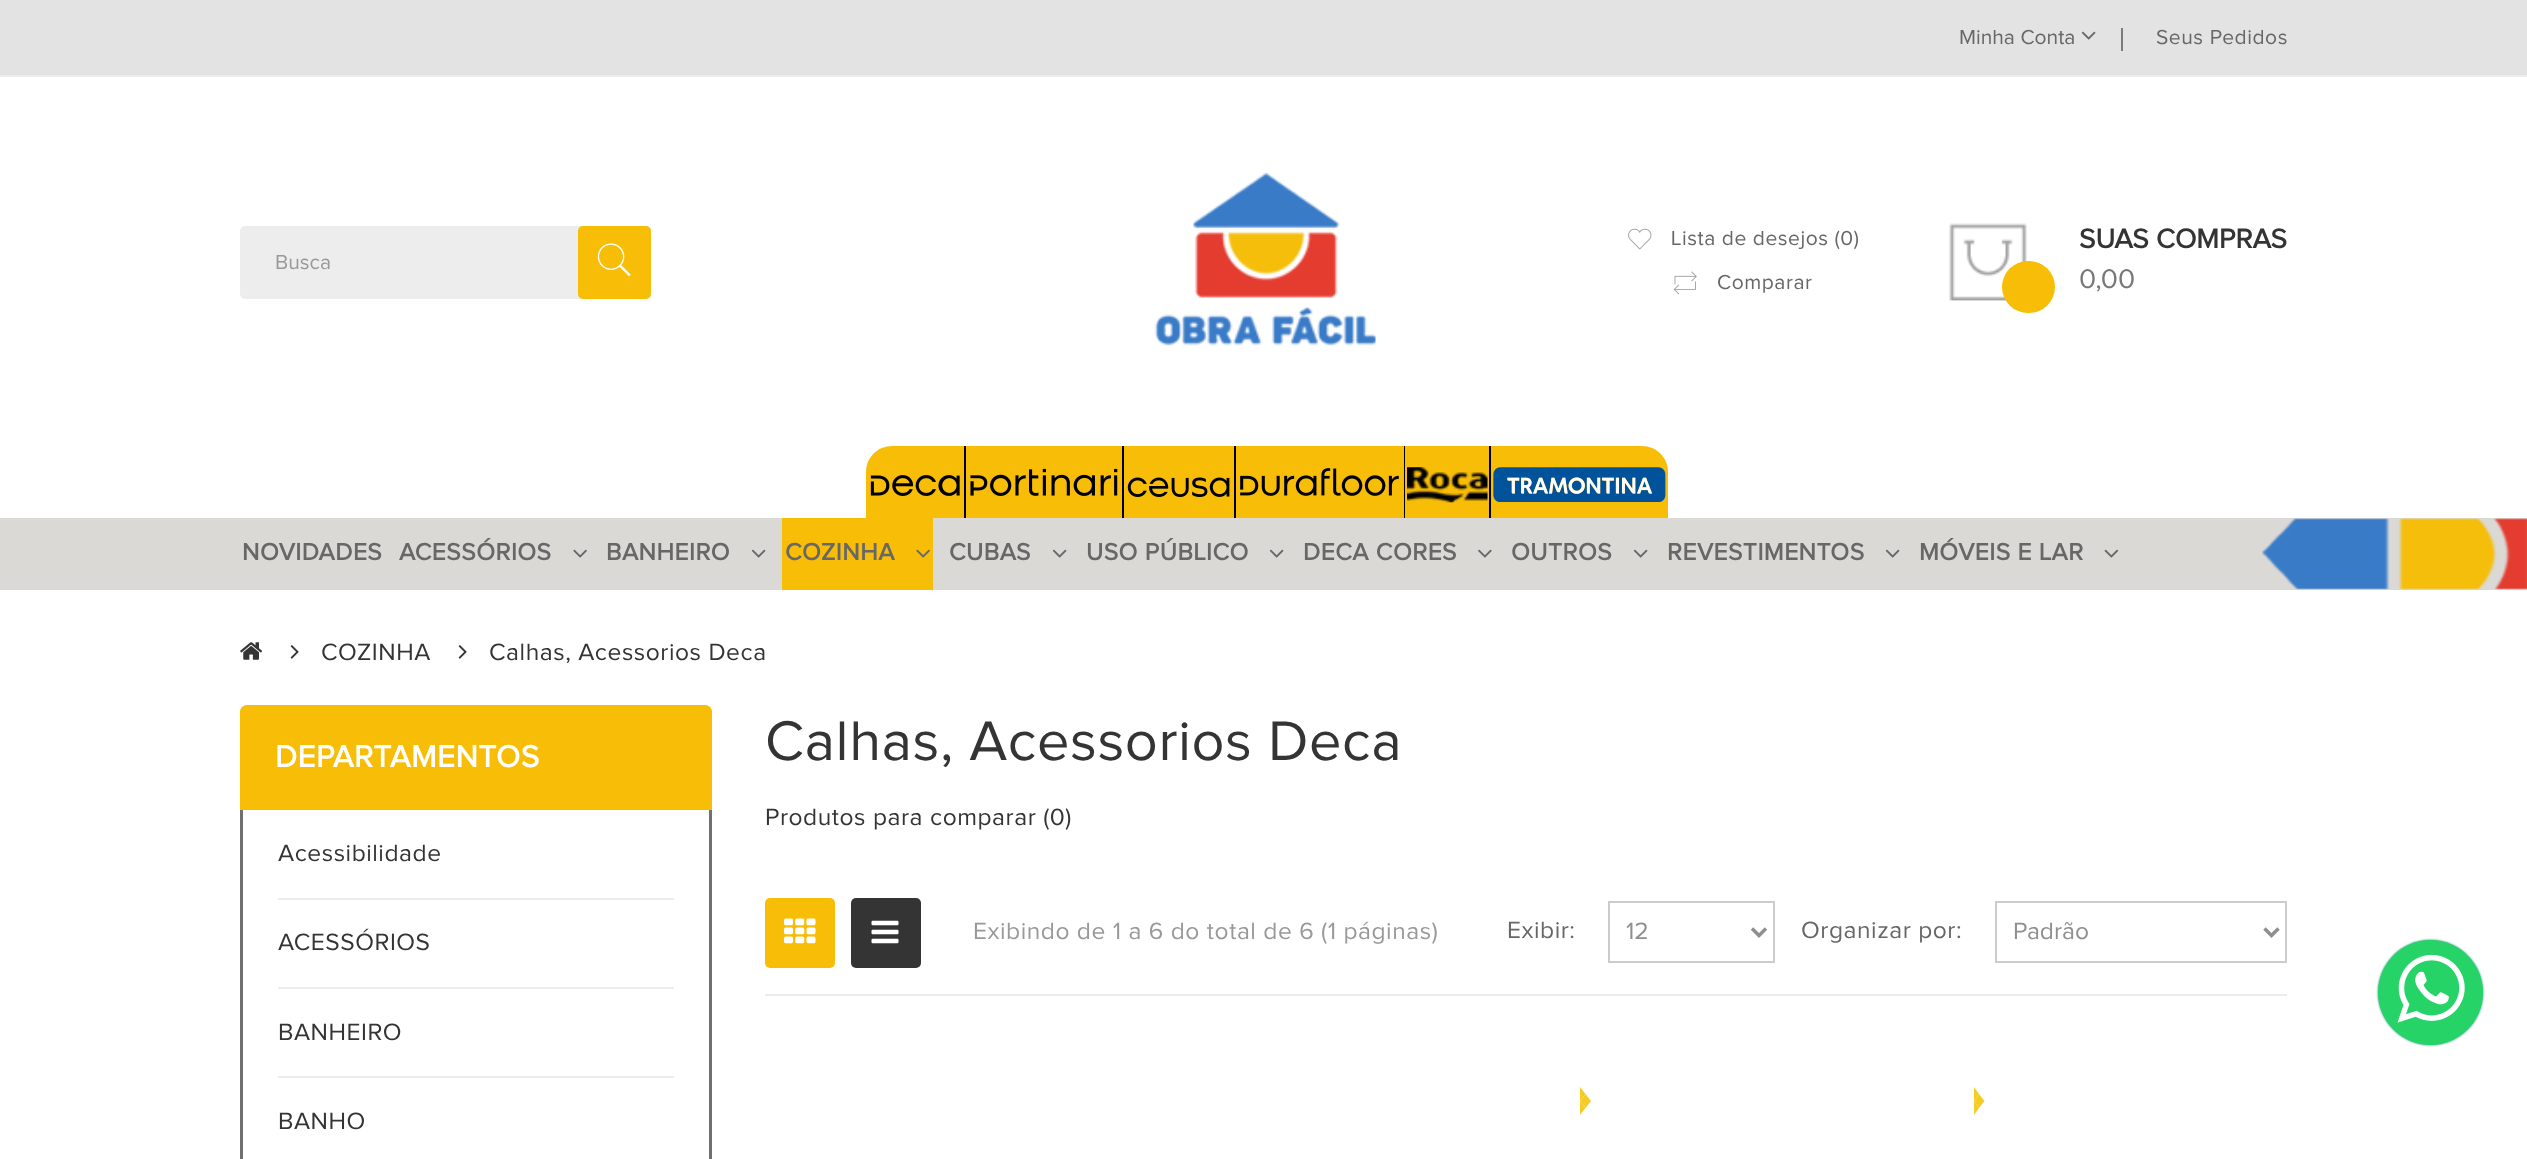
<?xml version="1.0" encoding="UTF-8"?>
<svg xmlns="http://www.w3.org/2000/svg" xmlns:xlink="http://www.w3.org/1999/xlink" width="2527" height="1159">
  <rect width="100%" height="100%" fill="#ffffff" />
  <rect width="2527" height="75" fill="#e3e3e3" />
  <rect y="75" width="2527" height="2" fill="#ededed" />
  <image x="2081" y="31" width="15" height="9" xlink:href="image1.png" />
  <rect x="2121" y="28" width="2" height="23" fill="#7c7c7c" />
  <rect x="240" y="226" width="411" height="73" rx="5" fill="#ededed" />
  <rect x="578" y="226" width="73" height="73" rx="5" fill="#f8bd07" />
  <image x="597" y="243" width="34" height="34" xlink:href="image2.png" />
  <image x="1154" y="172" width="222" height="174" xlink:href="image3.png" />
  <image x="1628" y="228" width="24" height="22" xlink:href="image4.png" />
  <image x="1673" y="271" width="24" height="24" xlink:href="image5.png" />
  <image x="1949" y="223" width="78" height="78" xlink:href="image6.png" />
  <rect x="2002" y="261" width="53" height="52" rx="26" fill="#f8bd07" />
  <path d="M 892 446 h 74 v 72 h -100 v -46 c 0 -14.5 11.5 -26 26 -26 z" fill="#f8bd07" />
  <rect x="964" y="446" width="2" height="72" fill="#000000" />
  <image x="870" y="475" width="90" height="21" xlink:href="image7.png" />
  <rect x="966" y="446" width="156" height="72" fill="#f8bd07" />
  <rect x="1122" y="446" width="2" height="72" fill="#000000" />
  <image x="970" y="468" width="148" height="28" xlink:href="image8.png" />
  <rect x="1124" y="446" width="110" height="72" fill="#f8bd07" />
  <rect x="1234" y="446" width="2" height="72" fill="#000000" />
  <image x="1127" y="477" width="103" height="20" xlink:href="image9.png" />
  <rect x="1236" y="446" width="168" height="72" fill="#f8bd07" />
  <rect x="1404" y="446" width="1" height="72" fill="#000000" />
  <image x="1240" y="468" width="159" height="28" xlink:href="image10.png" />
  <rect x="1405" y="446" width="84" height="72" fill="#f8bd07" />
  <rect x="1489" y="446" width="2" height="72" fill="#000000" />
  <image x="1407" y="467" width="81" height="36" xlink:href="image11.png" />
  <path d="M 1491 446 h 151 c 14.5 0 26 11.5 26 26 v 46 h -177 z" fill="#f8bd07" />
  <image x="1493" y="467" width="173" height="35" xlink:href="image12.png" />
  <rect y="518" width="2527" height="72" fill="#dbd9d6" />
  <image x="2262" y="518" width="265" height="72" xlink:href="image13.png" />
  <image x="573" y="549" width="14" height="9" xlink:href="image14.png" />
  <image x="751" y="549" width="15" height="9" xlink:href="image15.png" />
  <rect x="782" y="518" width="151" height="72" fill="#f8bd07" />
  <image x="916" y="549" width="14" height="9" xlink:href="image16.png" />
  <image x="1052" y="549" width="15" height="9" xlink:href="image15.png" />
  <image x="1269" y="549" width="15" height="9" xlink:href="image15.png" />
  <image x="1478" y="549" width="14" height="9" xlink:href="image17.png" />
  <image x="1633" y="549" width="15" height="9" xlink:href="image15.png" />
  <image x="1885" y="549" width="15" height="9" xlink:href="image15.png" />
  <image x="2104" y="549" width="15" height="9" xlink:href="image18.png" />
  <rect x="2378" y="940" width="105" height="105" rx="52.5" fill="#128c7e" filter="blur(1px)" />
  <circle cx="2430.5" cy="992.5" r="52.5" fill="#25d366" />
  <image x="2397" y="954" width="68" height="69" xlink:href="image19.png" />
  <image x="240" y="642" width="23" height="18" xlink:href="image20.png" />
  <image x="290" y="645" width="9" height="14" xlink:href="image21.png" />
  <image x="458" y="645" width="9" height="14" xlink:href="image21.png" />
  <path d="M 247 705 h 458 c 4 0 7 3 7 7 v 98 h -472 v -98 c 0 -4 3 -7 7 -7 z" fill="#f8bd07" />
  <path d="M 240 810 h 472 v 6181 c 0 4 -3 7 -7 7 h -458 c -4 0 -7 -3 -7 -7 z m 3 0 h 466 v 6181 c 0 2 -2 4 -4 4 h -458 c -2 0 -4 -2 -4 -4 z" fill="#707070" fill-rule="evenodd" />
  <rect x="278" y="898" width="396" height="2" fill="#ededed" />
  <rect x="278" y="987" width="396" height="2" fill="#ededed" />
  <rect x="278" y="1076" width="396" height="2" fill="#ededed" />
  <rect x="765" y="994" width="1522" height="2" fill="#ededed" />
  <rect x="765" y="898" width="70" height="70" rx="5" fill="#f8bd07" />
  <image x="784" y="918" width="32" height="26" xlink:href="image22.png" />
  <rect x="851" y="898" width="70" height="70" rx="5" fill="#343434" />
  <image x="871" y="920" width="28" height="24" xlink:href="image23.png" />
  <rect x="1609" y="902" width="165" height="60" fill="none" stroke="#cccccc" stroke-width="2" />
  <path d="M 1752 928.5 l 7 7 l 7 -7" fill="none" stroke="#908f8f" stroke-width="3.5" />
  <rect x="1996" y="902" width="290" height="60" fill="none" stroke="#cccccc" stroke-width="2" />
  <path d="M 2264.5 928.5 l 7 7 l 7 -7" fill="none" stroke="#908f8f" stroke-width="3.5" />
  <path d="M 1580 1101 h 11 l -5.5 7 z" fill="#f5cc26" />
  <path d="M 1580 1115 v -14 l 5.5 7 z m 11 -14 h -11 l 5.5 -7 z" fill="#f5cc26" />
  <path d="M 1580 1101 v -14 l 5.5 7 z" fill="#f5cc26" />
  <path d="M 1974 1101 h 10.5 l -5.5 7 z" fill="#f5cc26" />
  <path d="M 1974 1115 v -14 l 5 7 z m 10.5 -14 h -10.5 l 5 -7 z" fill="#f5cc26" />
  <path d="M 1974 1101 v -14 l 5 7 z" fill="#f5cc26" />
  <text x="1959" y="44" style="font-family: Proxima Nova; font-size: 21px; fill: #676767">Minha Conta</text>
  <text x="2156" y="44" style="font-family: Proxima Nova; font-size: 21px; letter-spacing: 0.55px; fill: #676767">Seus Pedidos</text>
  <text x="275" y="269" style="font-family: Proxima Nova; font-size: 21px; fill: #999999">Busca</text>
  <text x="1671" y="245" style="font-family: Proxima Nova; font-size: 21px; letter-spacing: 0.55px; fill: #676767">Lista de desejos (0)</text>
  <text x="1717" y="289" style="font-family: Proxima Nova; font-size: 21px; letter-spacing: 0.55px; fill: #676767">Comparar</text>
  <text x="2079" y="248" style="font-family: Proxima Nova; font-size: 28px; font-weight: bold; fill: #343434">SUAS COMPRAS</text>
  <text x="2079" y="288" style="font-family: Proxima Nova; font-size: 28px; fill: #787878">0,00</text>
  <text x="242" y="560" style="font-family: Proxima Nova; font-size: 24.5px; font-weight: bold; letter-spacing: 0.55px; fill: #676767">NOVIDADES</text>
  <text x="399" y="560" style="font-family: Proxima Nova; font-size: 24.5px; font-weight: bold; letter-spacing: 0.55px; fill: #676767">ACESSÓRIOS</text>
  <text x="606" y="560" style="font-family: Proxima Nova; font-size: 24.5px; font-weight: bold; letter-spacing: 0.55px; fill: #676767">BANHEIRO</text>
  <text x="785" y="560" style="font-family: Proxima Nova; font-size: 24.5px; font-weight: bold; letter-spacing: 0.55px; fill: #676767">COZINHA</text>
  <text x="949" y="560" style="font-family: Proxima Nova; font-size: 24.5px; font-weight: bold; letter-spacing: 0.55px; fill: #676767">CUBAS</text>
  <text x="1086" y="560" style="font-family: Proxima Nova; font-size: 24.5px; font-weight: bold; letter-spacing: 0.55px; fill: #676767">USO PÚBLICO</text>
  <text x="1303" y="560" style="font-family: Proxima Nova; font-size: 24.5px; font-weight: bold; letter-spacing: 0.55px; fill: #676767">DECA CORES</text>
  <text x="1511" y="560" style="font-family: Proxima Nova; font-size: 24.5px; font-weight: bold; letter-spacing: 0.55px; fill: #676767">OUTROS</text>
  <text x="1667" y="560" style="font-family: Proxima Nova; font-size: 24.5px; font-weight: bold; letter-spacing: 0.55px; fill: #676767">REVESTIMENTOS</text>
  <text x="1919" y="560" style="font-family: Proxima Nova; font-size: 24.5px; font-weight: bold; letter-spacing: 0.55px; fill: #676767">MÓVEIS E LAR</text>
  <text x="321" y="660" style="font-family: Proxima Nova; font-size: 24.5px; letter-spacing: 0.55px; fill: #343434">COZINHA</text>
  <text x="489" y="660" style="font-family: Proxima Nova; font-size: 24.5px; letter-spacing: 0.55px; fill: #343434">Calhas, Acessorios Deca</text>
  <text x="275" y="767" style="font-family: Proxima Nova; font-size: 31.5px; font-weight: bold; letter-spacing: 0.55px; fill: #ffffff">DEPARTAMENTOS</text>
  <text x="278" y="861" style="font-family: Proxima Nova; font-size: 24.5px; letter-spacing: 0.55px; fill: #343434">Acessibilidade</text>
  <text x="278" y="950" style="font-family: Proxima Nova; font-size: 24.5px; letter-spacing: 0.55px; fill: #343434">ACESSÓRIOS</text>
  <text x="278" y="1040" style="font-family: Proxima Nova; font-size: 24.5px; letter-spacing: 0.55px; fill: #343434">BANHEIRO</text>
  <text x="278" y="1129" style="font-family: Proxima Nova; font-size: 24.5px; letter-spacing: 0.55px; fill: #343434">BANHO</text>
  <text x="765" y="760" style="font-family: Proxima Nova; font-size: 57.75px; letter-spacing: 0.55px; fill: #343434">Calhas, Acessorios Deca</text>
  <text x="765" y="825" style="font-family: Proxima Nova; font-size: 24.5px; letter-spacing: 0.55px; fill: #343434">Produtos para comparar (0)</text>
  <text x="973" y="939" style="font-family: Proxima Nova; font-size: 24.5px; letter-spacing: 0.55px; fill: #999999">Exibindo de 1 a 6 do total de 6 (1 páginas)</text>
  <text x="1507" y="938" style="font-family: Proxima Nova; font-size: 24.5px; letter-spacing: 0.55px; fill: #676767">Exibir:</text>
  <text x="1626" y="939" style="font-family: Proxima Nova; font-size: 24.5px; fill: #908f8f">12</text>
  <text x="1801" y="938" style="font-family: Proxima Nova; font-size: 24.5px; letter-spacing: 0.55px; fill: #676767">Organizar por:</text>
  <text x="2013" y="939" style="font-family: Proxima Nova; font-size: 24.5px; fill: #908f8f">Padrão</text>
</svg>
